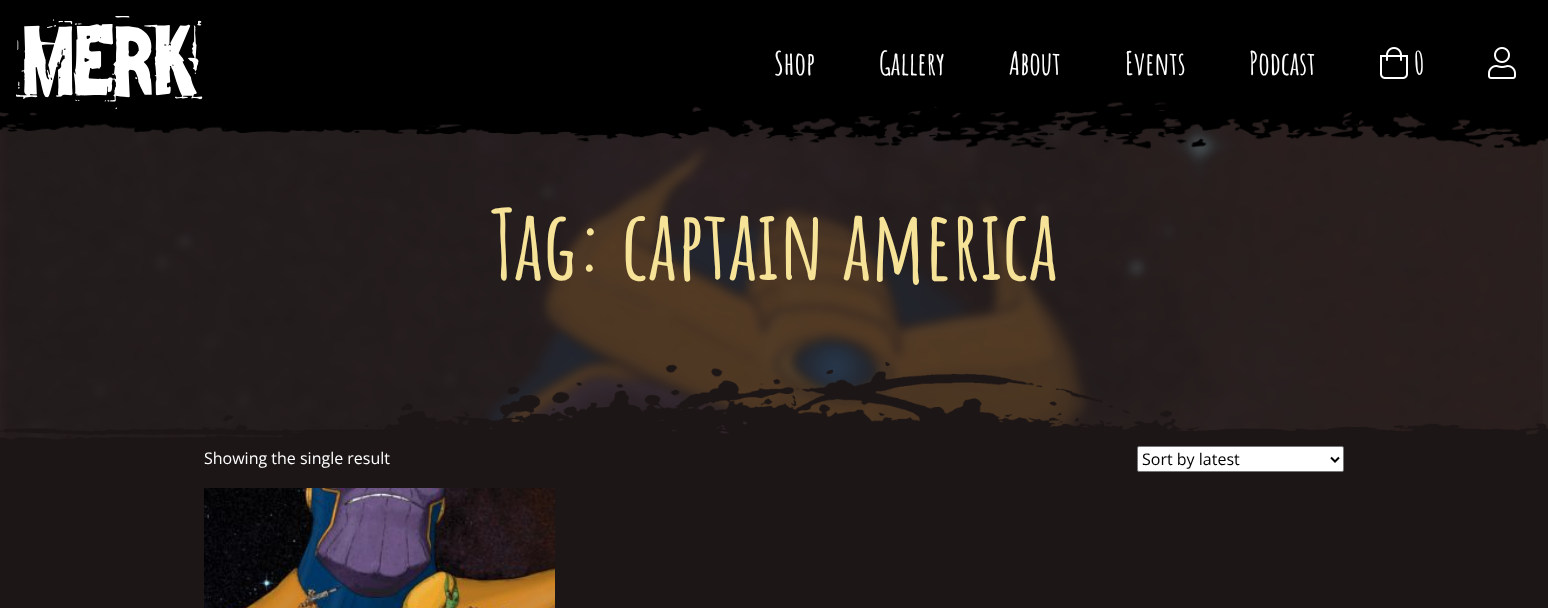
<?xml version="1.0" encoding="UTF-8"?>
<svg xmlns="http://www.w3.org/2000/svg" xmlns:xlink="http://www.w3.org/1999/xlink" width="1548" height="608">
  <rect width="100%" height="100%" fill="#1d1616" />
  <rect y="102" width="1548" height="338" fill="#2b2222" />
  <image x="0" y="102" width="1543" height="338" xlink:href="image5.png" />
  <image x="0" y="0" width="1548" height="150" xlink:href="image1.png" />
  <image x="16" y="16" width="187" height="93" xlink:href="image2.png" />
  <image x="1380" y="47" width="28" height="32" xlink:href="image3.png" />
  <image x="1488" y="47" width="28" height="32" xlink:href="image4.png" />
  <image x="0" y="362" width="1548" height="84" xlink:href="image6.png" />
  <rect x="1137.5" y="446.5" width="206" height="25" rx="1.5" fill="#ffffff" stroke="#767676" />
  <path d="M 1331 457.5 l 4 4 l 4 -4" fill="none" stroke="#000000" stroke-width="2" />
  <image x="204" y="488" width="351" height="120" xlink:href="image7.png" />
  <text x="774" y="75" style="font-family: Amatic SC; font-size: 32px; font-weight: bold; fill: #ffffff">Shop</text>
  <text x="879" y="75" style="font-family: Amatic SC; font-size: 32px; font-weight: bold; fill: #ffffff">Gallery</text>
  <text x="1009" y="75" style="font-family: Amatic SC; font-size: 32px; font-weight: bold; fill: #ffffff">About</text>
  <text x="1125" y="75" style="font-family: Amatic SC; font-size: 32px; font-weight: bold; fill: #ffffff">Events</text>
  <text x="1249" y="75" style="font-family: Amatic SC; font-size: 32px; font-weight: bold; fill: #ffffff">Podcast</text>
  <text x="1414" y="75" style="font-family: Amatic SC; font-size: 32px; font-weight: bold; fill: #ffffff">0</text>
  <text x="491" y="280" style="font-family: Amatic SC; font-size: 96px; font-weight: bold; fill: #f6e397">Tag: captain america</text>
  <text x="204" y="464" style="font-family: Open Sans; font-size: 16px; fill: #ffffff">Showing the single result</text>
  <text x="1142" y="465" style="font-family: Open Sans; font-size: 16px; fill: #000000">Sort by latest</text>
</svg>
